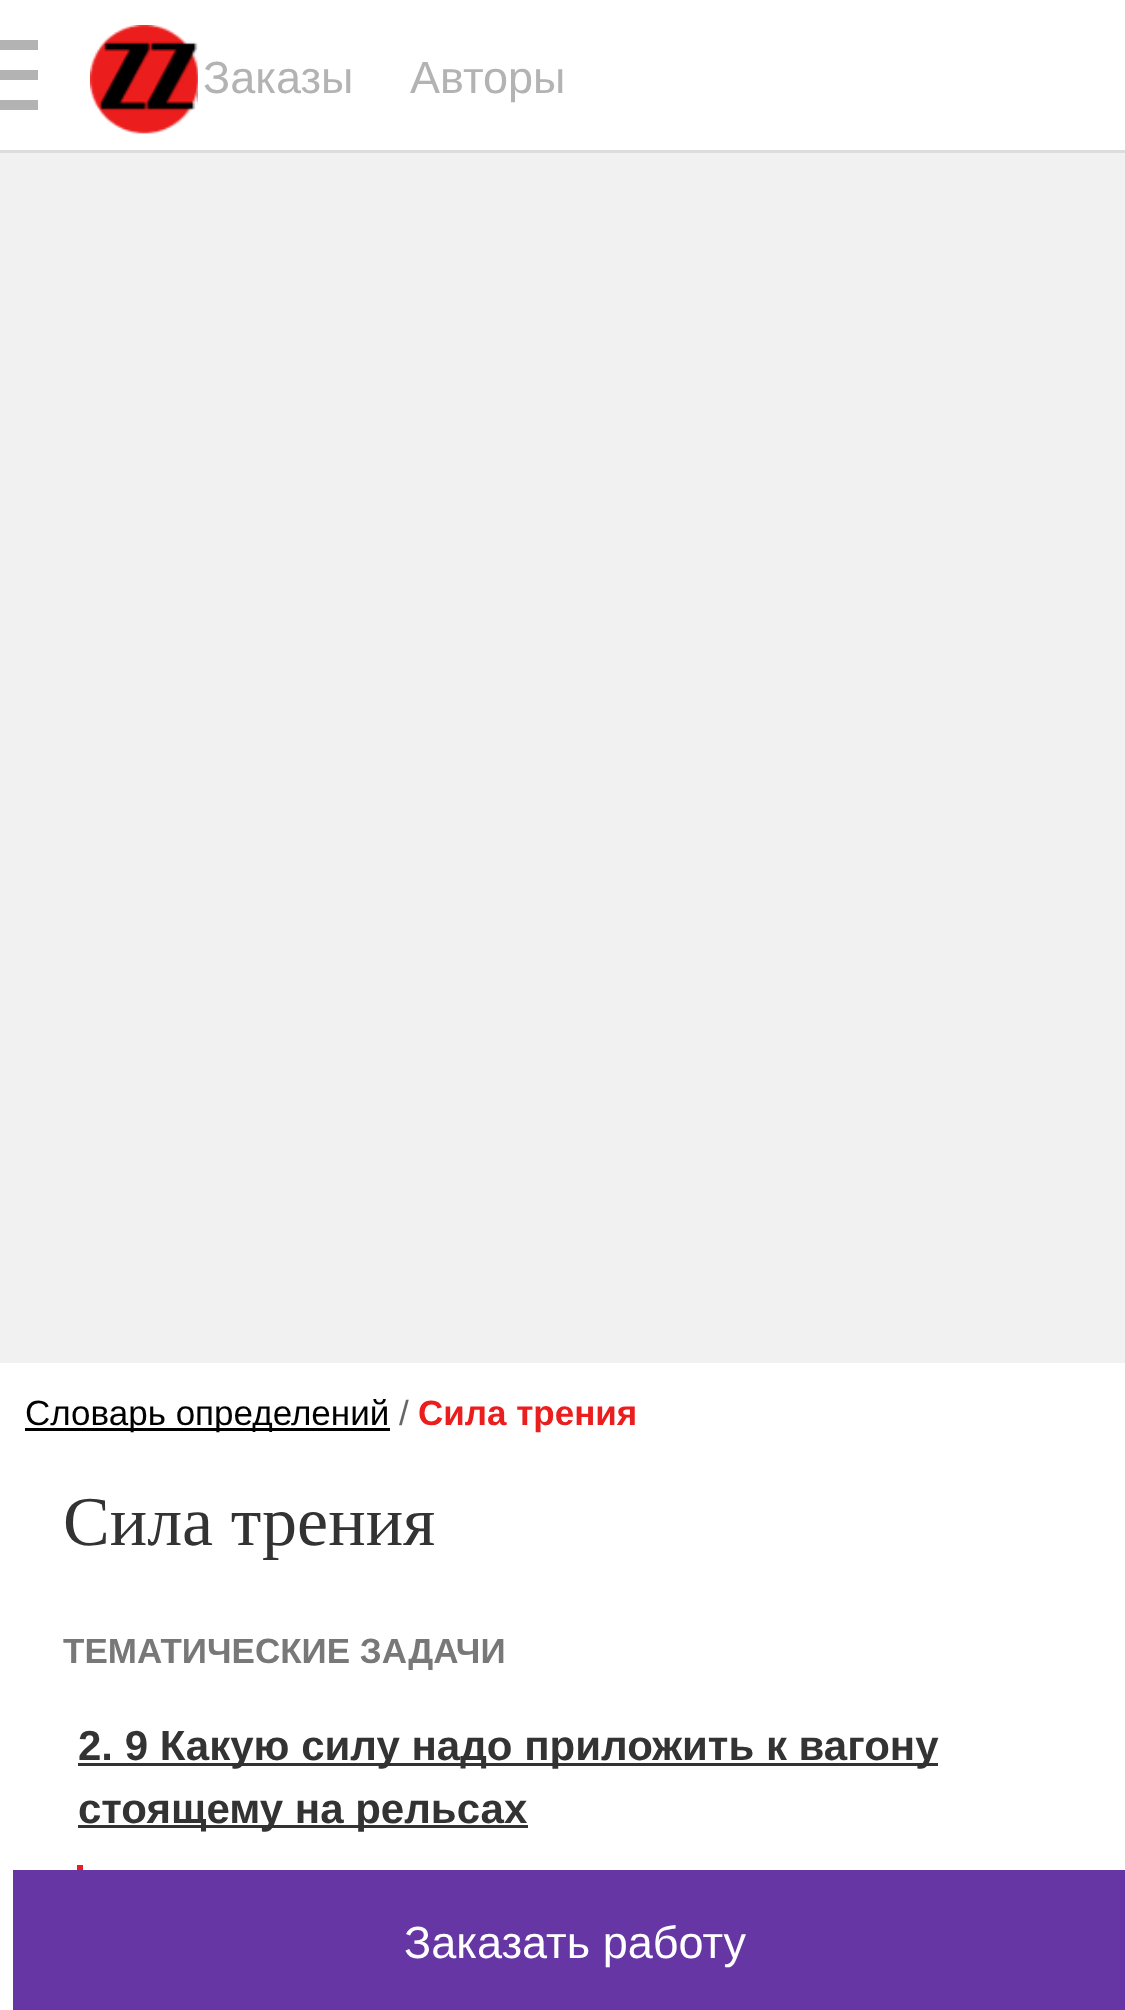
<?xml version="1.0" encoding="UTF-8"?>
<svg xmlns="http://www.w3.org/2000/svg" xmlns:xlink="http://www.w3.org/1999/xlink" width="1125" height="2010">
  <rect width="100%" height="100%" fill="#f1f1f1" />
  <rect width="1125" height="150" fill="#ffffff" />
  <rect y="150" width="1125" height="3" fill="#dddddd" />
  <rect y="40" width="38" height="10" fill="#b3b3b3" />
  <rect y="70" width="38" height="10" fill="#b3b3b3" />
  <rect y="100" width="38" height="10" fill="#b3b3b3" />
  <image x="90" y="25" width="108" height="109" xlink:href="image1.png" />
  <rect y="1363" width="1125" height="647" fill="#ffffff" />
  <rect x="25" y="1428" width="365" height="3" fill="#000000" />
  <rect x="78" y="1763" width="860" height="3" fill="#333333" />
  <rect x="78" y="1825" width="450" height="3" fill="#333333" />
  <rect x="77" y="1865" width="6" height="5" fill="#eb1d1d" />
  <rect x="13" y="1870" width="1112" height="140" fill="#6536a4" />
  <text x="203" y="93" style="font-family: Liberation Sans; font-size: 45px; fill: #b3b3b3">Заказы</text>
  <text x="410" y="93" style="font-family: Liberation Sans; font-size: 45px; fill: #b3b3b3">Авторы</text>
  <text x="25" y="1425" style="font-family: Liberation Sans; font-size: 35px; fill: #000000">Словарь определений</text>
  <text x="399" y="1425" style="font-family: Liberation Sans; font-size: 35px; fill: #666666">/</text>
  <text x="418" y="1425" style="font-family: Liberation Sans; font-size: 35px; font-weight: bold; fill: #eb1d1d">Сила трения</text>
  <text x="63" y="1545" style="font-family: Liberation Serif; font-size: 70px; fill: #333333">Сила трения</text>
  <text x="63" y="1663" style="font-family: Liberation Sans; font-size: 35px; font-weight: bold; fill: #787878">ТЕМАТИЧЕСКИЕ ЗАДАЧИ</text>
  <text x="78" y="1760" style="font-family: Liberation Sans; font-size: 42px; font-weight: bold; fill: #333333">2. 9 Какую силу надо приложить к вагону</text>
  <text x="78" y="1823" style="font-family: Liberation Sans; font-size: 42px; font-weight: bold; fill: #333333">стоящему на рельсах</text>
  <text x="404" y="1958" style="font-family: Liberation Sans; font-size: 45px; fill: #ffffff">Заказать работу</text>
</svg>
